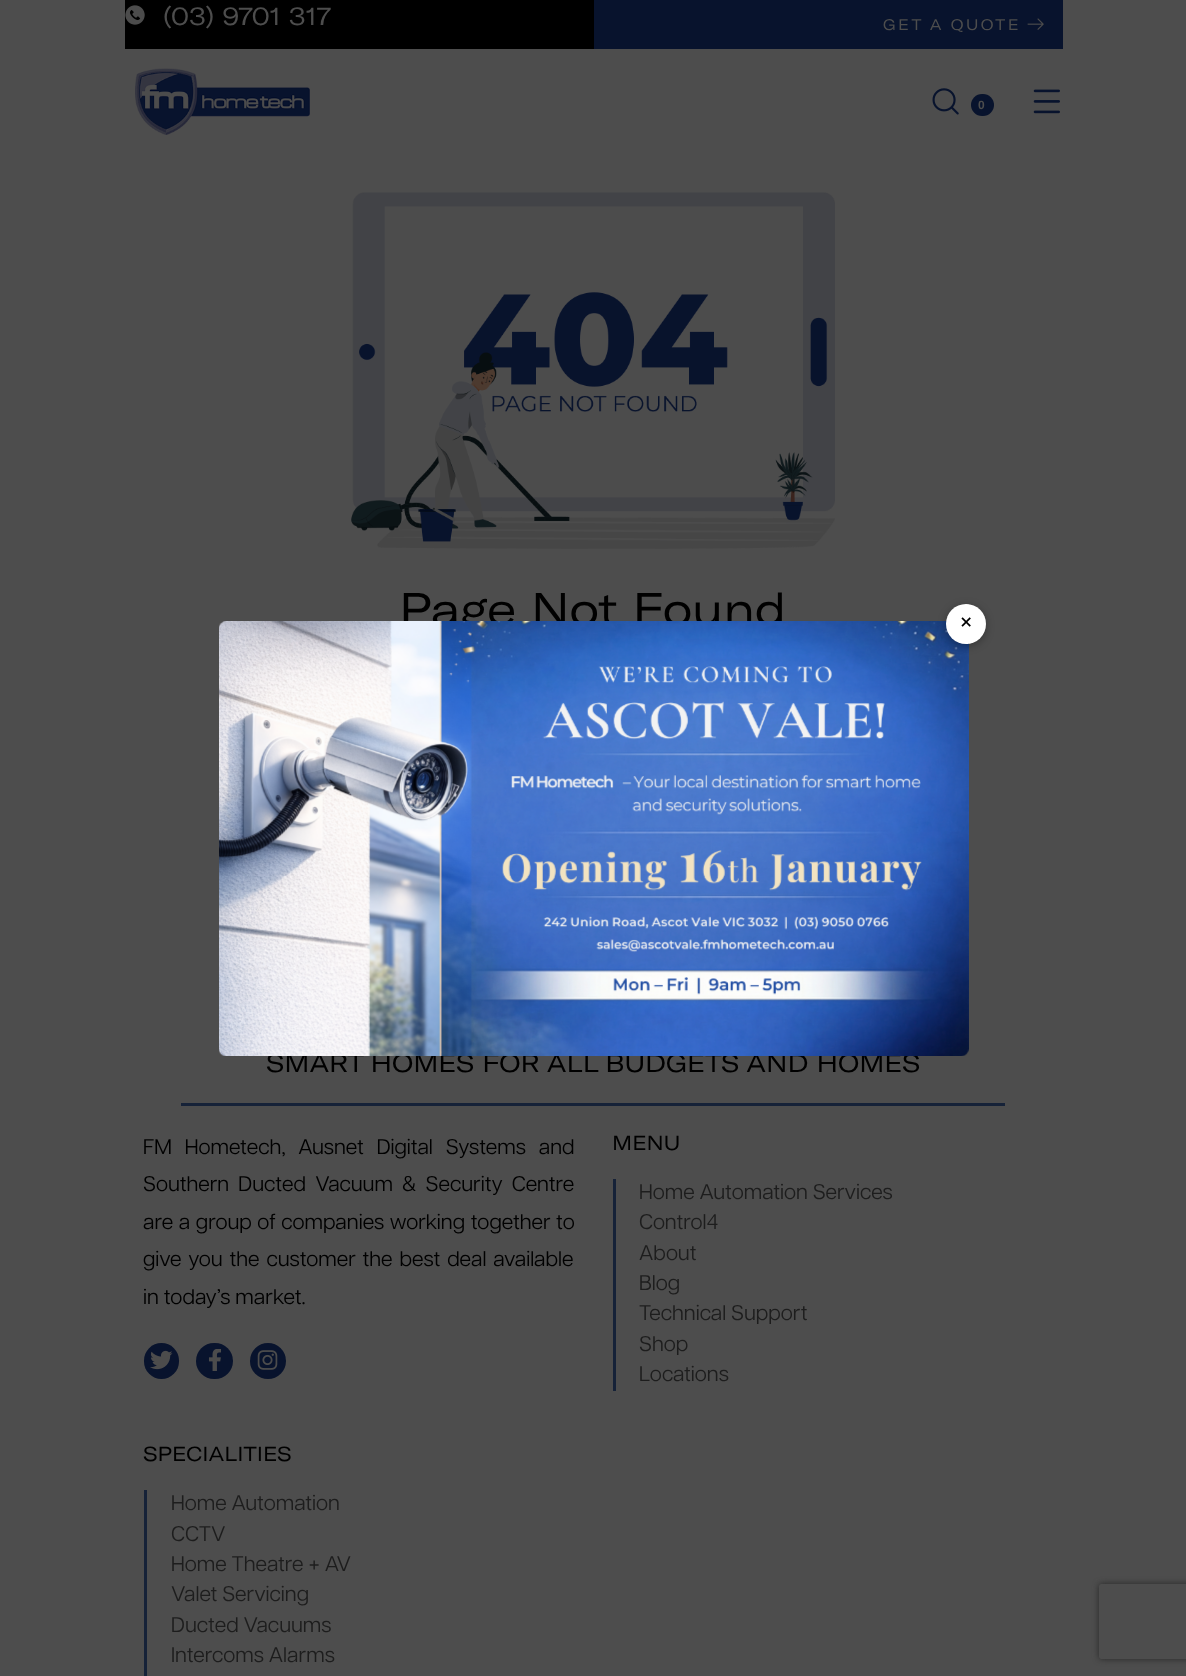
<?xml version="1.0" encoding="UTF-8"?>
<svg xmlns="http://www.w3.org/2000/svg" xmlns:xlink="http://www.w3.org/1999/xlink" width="1186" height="1676">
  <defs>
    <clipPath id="clip1"><path d="M 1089 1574 h 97 v 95 h -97 z m 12.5 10 h 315 c 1.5 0 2.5 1 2.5 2.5 v 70 c 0 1.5 -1 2.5 -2.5 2.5 h -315 c -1.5 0 -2.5 -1 -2.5 -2.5 v -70 c 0 -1.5 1 -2.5 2.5 -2.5 z" clip-rule="evenodd" /></clipPath>
  </defs>
  <rect width="100%" height="100%" fill="#4d4d4d" />
  <rect x="125" width="469" height="49" fill="#000000" />
  <image x="125" y="5" width="20" height="20" xlink:href="image1.png" />
  <rect x="594" width="469" height="49" fill="#08132d" />
  <image x="1027" y="18" width="17" height="12" xlink:href="image2.png" />
  <image x="135" y="68" width="175" height="67" xlink:href="image3.png" />
  <image x="932" y="88" width="27" height="27" xlink:href="image4.png" />
  <rect x="971" y="94" width="23" height="22" rx="11" fill="#08132d" />
  <image x="1033" y="89" width="27" height="25" xlink:href="image5.png" />
  <image x="351" y="192" width="484" height="357" xlink:href="image6.png" />
  <rect x="181" y="1103" width="824" height="3" fill="#162238" />
  <rect x="144" y="1343" width="35" height="36" rx="17.5" fill="#08132d" />
  <image x="150" y="1350" width="23" height="20" xlink:href="image7.png" />
  <rect x="196" y="1343" width="37" height="36" rx="18" fill="#08132d" />
  <image x="208" y="1349" width="14" height="22" xlink:href="image8.png" />
  <circle cx="268" cy="1361" r="18" fill="#08132d" />
  <image x="257" y="1350" width="21" height="20" xlink:href="image9.png" />
  <rect x="613" y="1179" width="3" height="212" fill="#162238" />
  <rect x="144" y="1490" width="3" height="186" fill="#162238" />
  <g clip-path="url(#clip1)">
    <rect x="1099" y="1584" width="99" height="75" rx="2.5" fill="#262626" filter="blur(3px)" />
  </g>
  <text x="163" y="25" style="font-family: GT America; font-size: 25px; fill: #4d4d4d">(03) 9701 317</text>
  <text x="883" y="30" style="font-family: GT America; font-size: 15px; letter-spacing: 2.5px; fill: #4d4d4d">GET A QUOTE</text>
  <text x="978" y="109" style="font-family: Liberation Sans; font-size: 12px; font-weight: bold; fill: #4d4d4d">0</text>
  <text x="399" y="625" style="font-family: GT America; font-size: 45px; fill: #000000">Page Not Found</text>
  <text x="266" y="1072" style="font-family: GT America; font-size: 25px; fill: #000000">SMART HOMES FOR ALL BUDGETS AND HOMES</text>
  <text x="143" y="1154" word-spacing="8" style="font-family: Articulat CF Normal; font-size: 21.25px; fill: #000000">FM Hometech, Ausnet Digital Systems and</text>
  <text x="143" y="1191" word-spacing="4.25" style="font-family: Articulat CF Normal; font-size: 21.25px; fill: #000000">Southern Ducted Vacuum &amp; Security Centre</text>
  <text x="143" y="1229" word-spacing="0.75" style="font-family: Articulat CF Normal; font-size: 21.25px; fill: #000000">are a group of companies working together to</text>
  <text x="143" y="1266" word-spacing="2" style="font-family: Articulat CF Normal; font-size: 21.25px; fill: #000000">give you the customer the best deal available</text>
  <text x="143" y="1304" style="font-family: Articulat CF Normal; font-size: 21.25px; fill: #000000">in today’s market.</text>
  <text x="612" y="1150" style="font-family: GT America; font-size: 20px; fill: #000000">MENU</text>
  <text x="639" y="1199" style="font-family: Articulat CF Normal; font-size: 21.25px; fill: #1d1d1d">Home Automation Services</text>
  <text x="639" y="1229" style="font-family: Articulat CF Normal; font-size: 21.25px; fill: #1d1d1d">Control4</text>
  <text x="639" y="1260" style="font-family: Articulat CF Normal; font-size: 21.25px; fill: #1d1d1d">About</text>
  <text x="639" y="1290" style="font-family: Articulat CF Normal; font-size: 21.25px; fill: #1d1d1d">Blog</text>
  <text x="639" y="1320" style="font-family: Articulat CF Normal; font-size: 21.25px; fill: #1d1d1d">Technical Support</text>
  <text x="639" y="1351" style="font-family: Articulat CF Normal; font-size: 21.25px; fill: #1d1d1d">Shop</text>
  <text x="639" y="1381" style="font-family: Articulat CF Normal; font-size: 21.25px; fill: #1d1d1d">Locations</text>
  <text x="143" y="1461" style="font-family: GT America; font-size: 20px; fill: #000000">SPECIALITIES</text>
  <text x="171" y="1510" style="font-family: Articulat CF Normal; font-size: 21.25px; fill: #1d1d1d">Home Automation</text>
  <text x="171" y="1541" style="font-family: Articulat CF Normal; font-size: 21.25px; fill: #1d1d1d">CCTV</text>
  <text x="171" y="1571" style="font-family: Articulat CF Normal; font-size: 21.25px; fill: #1d1d1d">Home Theatre + AV</text>
  <text x="171" y="1601" style="font-family: Articulat CF Normal; font-size: 21.25px; fill: #1d1d1d">Valet Servicing</text>
  <text x="171" y="1632" style="font-family: Articulat CF Normal; font-size: 21.25px; fill: #1d1d1d">Ducted Vacuums</text>
  <text x="171" y="1662" style="font-family: Articulat CF Normal; font-size: 21.25px; fill: #1d1d1d">Intercoms Alarms</text>
  <image x="219" y="621" width="750" height="435" xlink:href="image10.png" />
  <rect x="946" y="606" width="40" height="40" rx="20" fill="#000000" fill-opacity="0.3" filter="blur(4px)" />
  <circle cx="966" cy="624" r="20" fill="#ffffff" />
  <text x="960" y="629" style="font-family: Articulat CF Normal; font-size: 28px; fill: #000000">×</text>
</svg>
